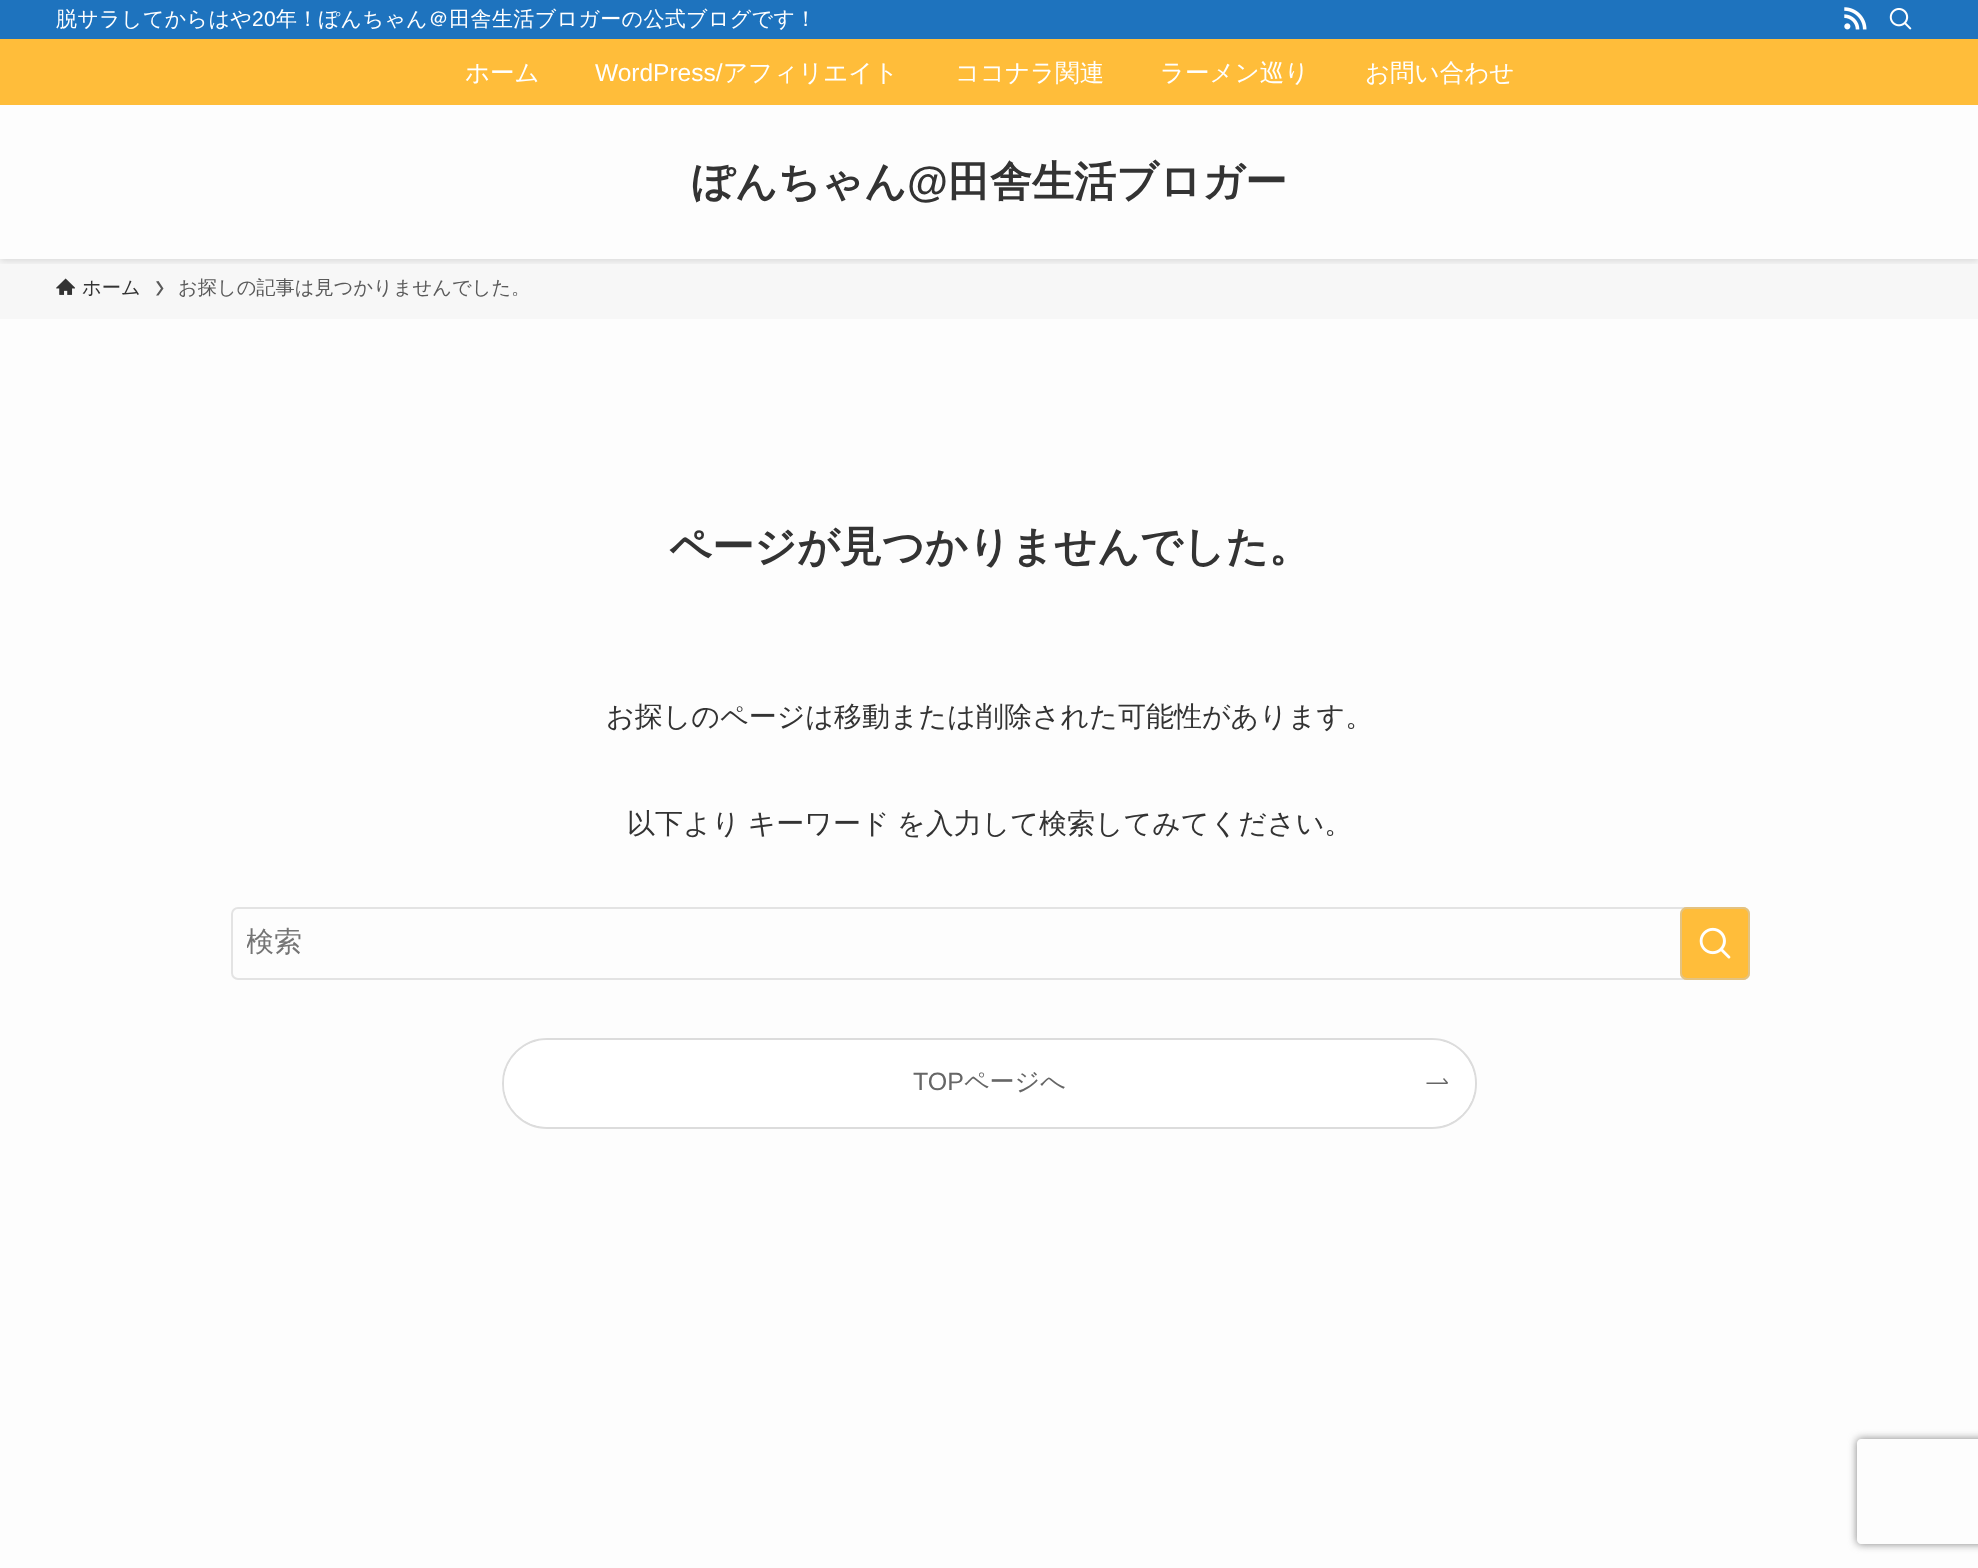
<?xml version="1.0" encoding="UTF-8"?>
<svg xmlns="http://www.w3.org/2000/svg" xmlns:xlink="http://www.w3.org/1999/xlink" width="1978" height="1568">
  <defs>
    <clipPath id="clip1"><rect x="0" y="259" width="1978" height="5" /></clipPath>
    <clipPath id="clip2"><path d="M 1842 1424 h 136 v 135 h -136 z m 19 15 h 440 c 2 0 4 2 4 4 v 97 c 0 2 -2 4 -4 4 h -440 c -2 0 -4 -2 -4 -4 v -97 c 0 -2 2 -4 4 -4 z" clip-rule="evenodd" /></clipPath>
    <clipPath id="clip3"><rect x="247" y="926" width="1424" height="37" /></clipPath>
  </defs>
  <rect width="100%" height="100%" fill="#fdfdfd" />
  <rect y="259" width="1978" height="60" fill="#f7f7f7" />
  <g clip-path="url(#clip1)">
    <rect y="2" width="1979" height="259" fill="#000000" fill-opacity="0.12" filter="blur(3.5px)" />
  </g>
  <rect width="1978" height="39" fill="#1e73be" />
  <image x="1844" y="7" width="23" height="23" xlink:href="image1.png" />
  <image x="1889" y="8" width="23" height="22" xlink:href="image2.png" />
  <rect y="39" width="1978" height="66" fill="#ffbd3a" />
  <image x="56" y="278" width="19" height="17" xlink:href="image3.png" />
  <path d="M 158.5 281 l -2.5 0.5 l 5 7 l -5 7 h 2.5 l 5 -7 z" fill="#5a5a5a" />
  <rect x="232" y="908" width="1517" height="71" rx="6" fill="none" stroke="#e3e3e3" stroke-width="2" />
  <rect x="1680" y="907" width="70" height="73" rx="7" fill="#ffbd3a" />
  <rect x="1681" y="908" width="68" height="71" rx="6" fill="none" stroke="#c7c7c7" stroke-opacity="0.5" stroke-width="2" />
  <image x="1699" y="927" width="32" height="32" xlink:href="image4.png" />
  <rect x="503" y="1039" width="973" height="89" rx="44.5" fill="none" stroke="#dcdcdc" stroke-width="2" />
  <rect x="504" y="1040" width="971" height="87" rx="43.5" fill="#ffffff" />
  <path d="M 1447.5 1084 h -21 v -1.5 h 19.5 l -3 -3.5 l 1 -1 l 4 4.5 z" fill="#666666" />
  <g clip-path="url(#clip2)">
    <rect x="1857" y="1439" width="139" height="105" rx="4" fill="#808080" filter="blur(4.5px)" />
  </g>
  <text x="56" y="26" style="font-family: WenQuanYi Zen Hei; font-size: 21px; font-weight: 500; letter-spacing: 0.35px; fill: #ffffff">脱サラしてからはや</text>
  <text x="252" y="26" style="font-family: Liberation Sans; font-size: 21px; letter-spacing: 0.35px; fill: #ffffff">20</text>
  <text x="276" y="26" style="font-family: WenQuanYi Zen Hei; font-size: 21px; font-weight: 500; letter-spacing: 0.35px; fill: #ffffff">年！ぽんちゃん＠田舎生活ブロガーの公式ブログです！</text>
  <text x="465" y="81" style="font-family: WenQuanYi Zen Hei; font-size: 24.5px; font-weight: 500; fill: #ffffff">ホーム</text>
  <text x="595" y="81" style="font-family: Liberation Sans; font-size: 24.5px; fill: #ffffff">WordPress/</text>
  <text x="723" y="81" style="font-family: WenQuanYi Zen Hei; font-size: 24.5px; font-weight: 500; fill: #ffffff">アフィリエイト</text>
  <text x="955" y="81" style="font-family: WenQuanYi Zen Hei; font-size: 24.5px; font-weight: 500; fill: #ffffff">ココナラ関連</text>
  <text x="1160" y="81" style="font-family: WenQuanYi Zen Hei; font-size: 24.5px; font-weight: 500; fill: #ffffff">ラーメン巡り</text>
  <text x="1365" y="81" style="font-family: WenQuanYi Zen Hei; font-size: 24.5px; font-weight: 500; fill: #ffffff">お問い合わせ</text>
  <text x="692" y="196" style="font-family: WenQuanYi Zen Hei; font-size: 42px; font-weight: bold; fill: #333333">ぽんちゃん</text>
  <text x="907" y="196" style="font-family: Liberation Sans; font-size: 42px; font-weight: bold; fill: #333333">@</text>
  <text x="948" y="196" style="font-family: WenQuanYi Zen Hei; font-size: 42px; font-weight: bold; fill: #333333">田舎生活ブロガー</text>
  <text x="82" y="294" style="font-family: WenQuanYi Zen Hei; font-size: 19.25px; font-weight: 500; fill: #333333">ホーム</text>
  <text x="178" y="294" style="font-family: WenQuanYi Zen Hei; font-size: 19.25px; font-weight: 500; fill: #5a5a5a">お探しの記事は見つかりませんでした。</text>
  <text x="669" y="561" style="font-family: WenQuanYi Zen Hei; font-size: 42px; font-weight: bold; fill: #333333">ページが見つかりませんでした。</text>
  <text x="606" y="726" style="font-family: WenQuanYi Zen Hei; font-size: 28px; font-weight: 500; fill: #333333">お探しのページは移動または削除された可能性があります。</text>
  <text x="627" y="833" word-spacing="-1" style="font-family: WenQuanYi Zen Hei; font-size: 28px; font-weight: 500; fill: #333333">以下より キーワード を入力して検索してみてください。</text>
  <g clip-path="url(#clip3)">
    <text x="246" y="951" style="font-family: WenQuanYi Zen Hei; font-size: 28px; font-weight: 500; fill: #757575">検索</text>
  </g>
  <text x="913" y="1090" style="font-family: Liberation Sans; font-size: 25px; fill: #666666">TOP</text>
  <text x="964" y="1090" style="font-family: WenQuanYi Zen Hei; font-size: 25px; font-weight: 500; fill: #666666">ページへ</text>
</svg>
